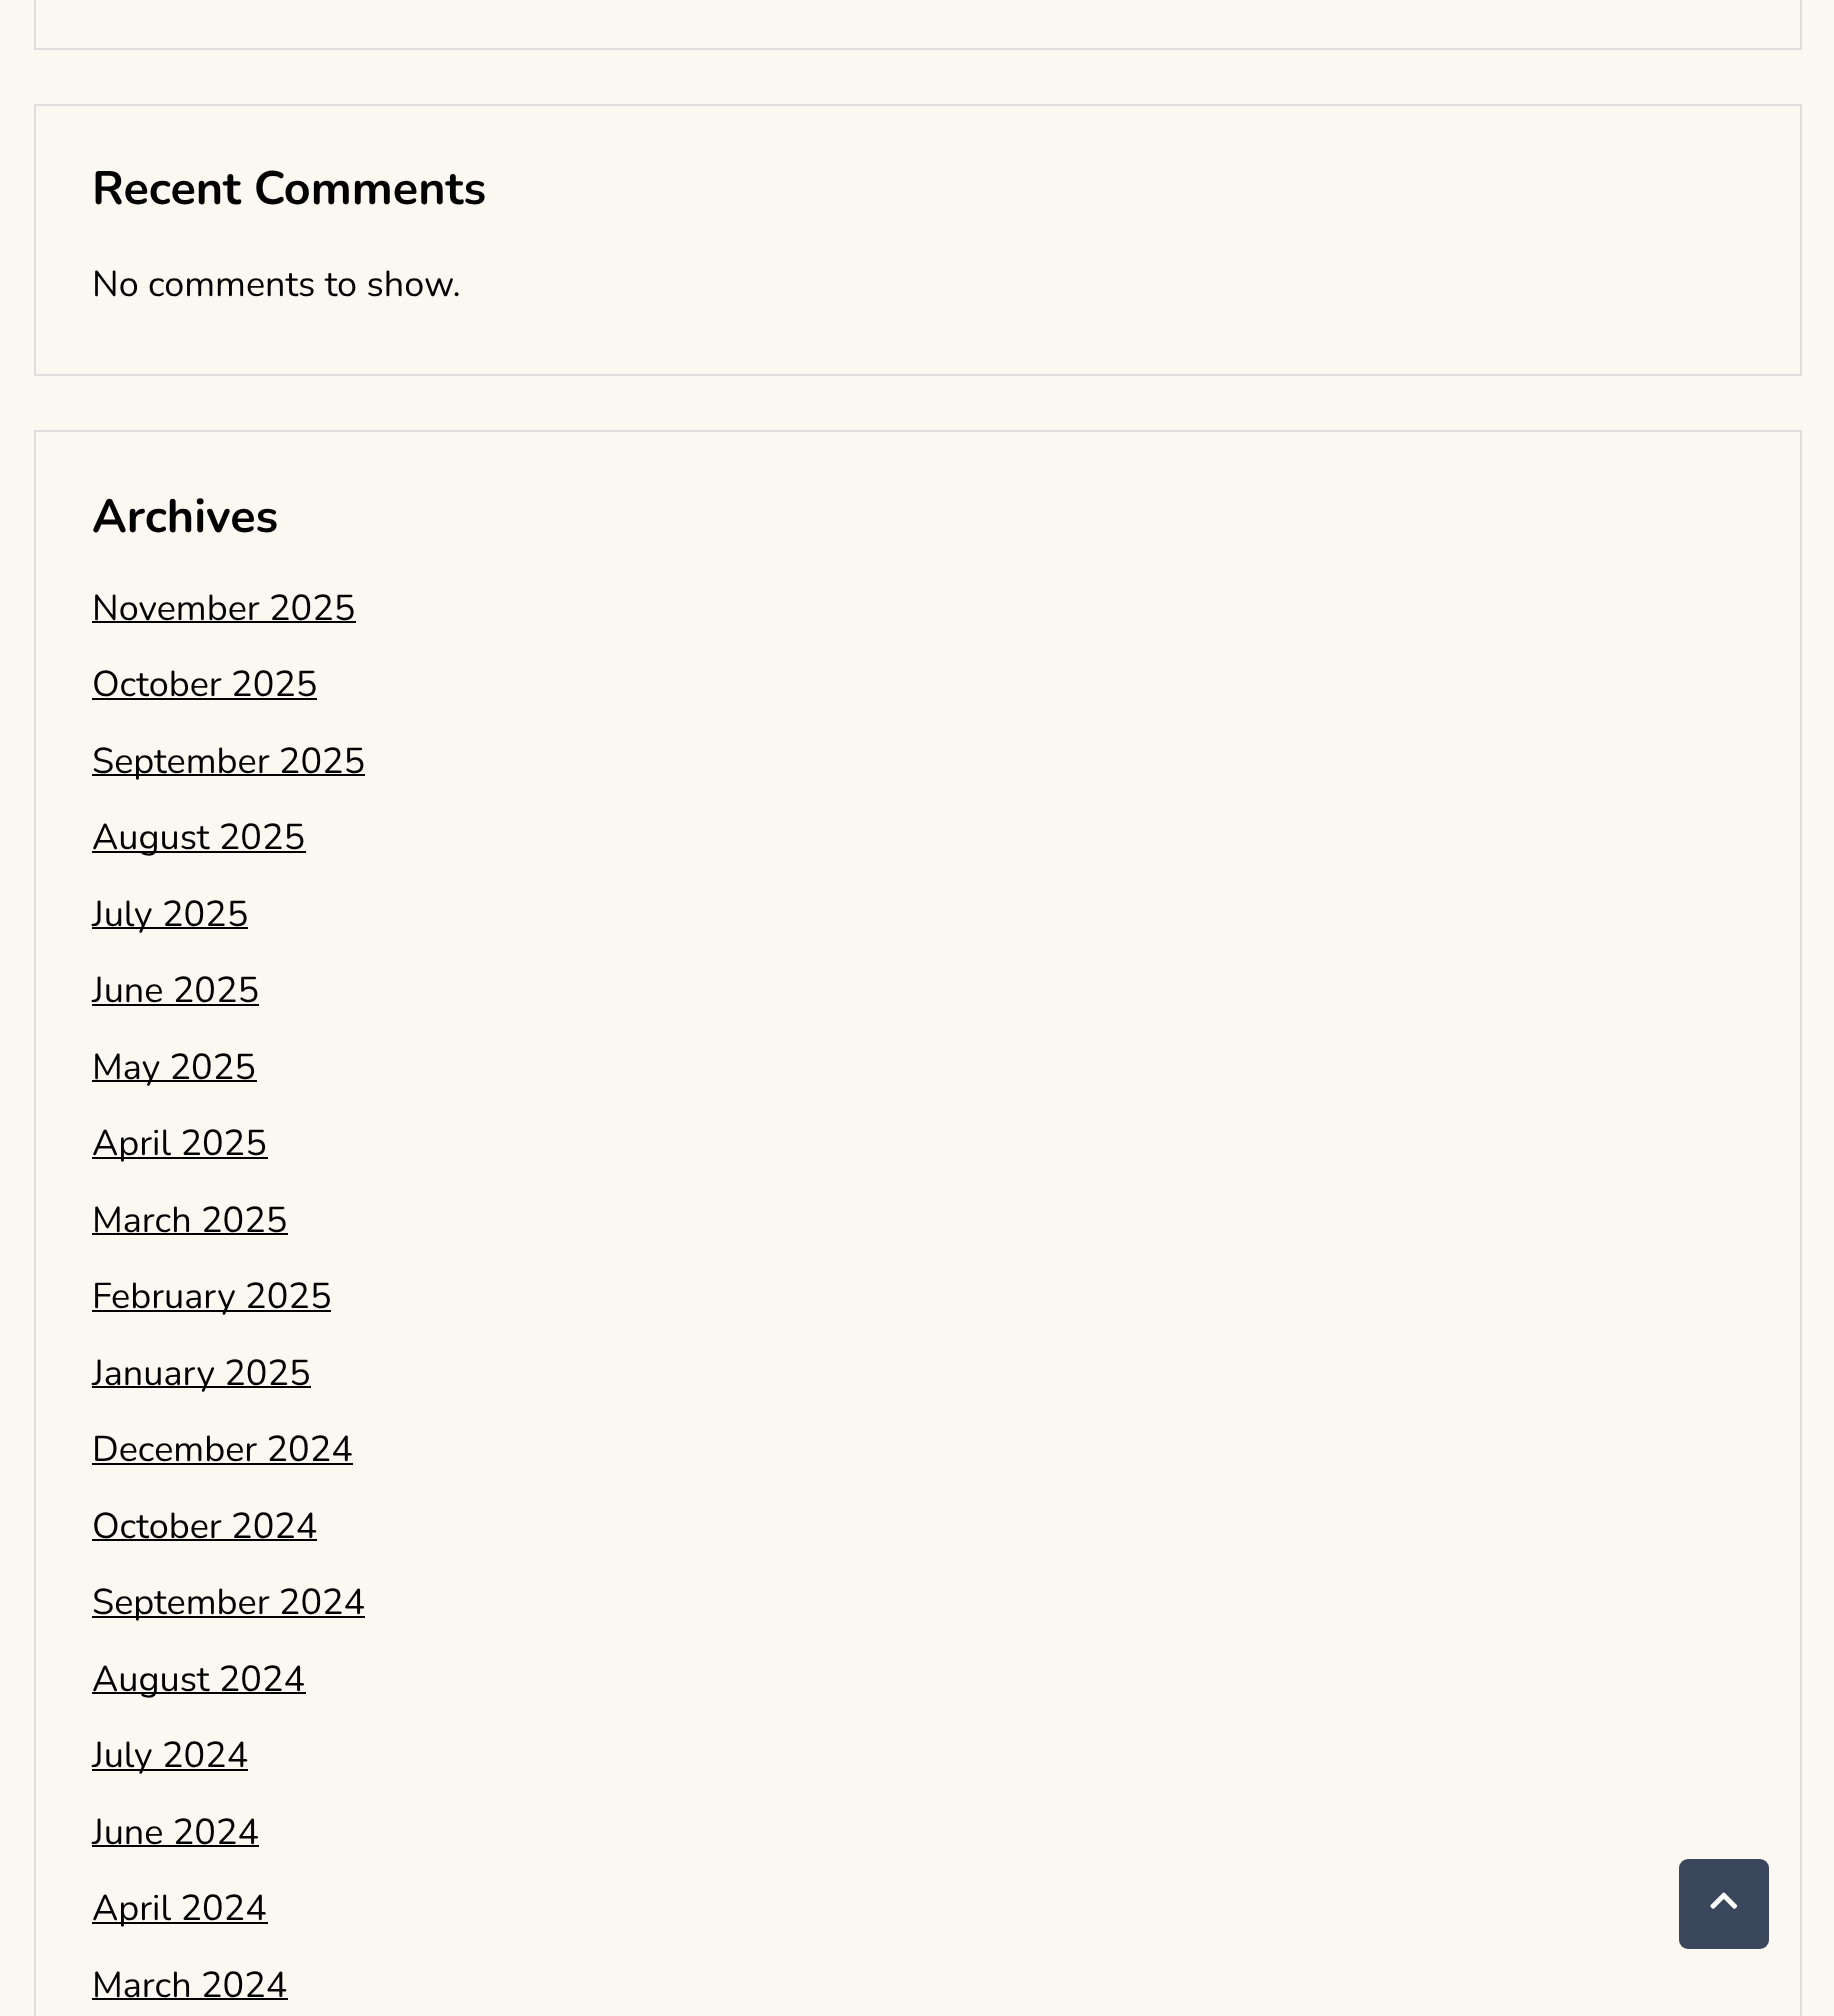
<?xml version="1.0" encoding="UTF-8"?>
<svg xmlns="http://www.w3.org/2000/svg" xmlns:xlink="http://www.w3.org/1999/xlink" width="1834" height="2016">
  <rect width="100%" height="100%" fill="#fbf8f1" />
  <rect x="35" y="-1" width="1766" height="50" fill="none" stroke="#dddddd" stroke-width="2" />
  <rect x="35" y="105" width="1766" height="270" fill="none" stroke="#dddddd" stroke-width="2" />
  <rect x="35" y="431" width="1766" height="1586" fill="none" stroke="#dddddd" stroke-width="2" />
  <rect x="92" y="621" width="264" height="2" fill="#020202" />
  <rect x="92" y="698" width="225" height="2" fill="#020202" />
  <rect x="92" y="774" width="273" height="2" fill="#020202" />
  <rect x="92" y="851" width="214" height="2" fill="#020202" />
  <rect x="92" y="927" width="156" height="2" fill="#020202" />
  <rect x="92" y="1004" width="167" height="2" fill="#020202" />
  <rect x="92" y="1080" width="165" height="2" fill="#020202" />
  <rect x="92" y="1157" width="176" height="2" fill="#020202" />
  <rect x="92" y="1233" width="196" height="2" fill="#020202" />
  <rect x="92" y="1310" width="239" height="2" fill="#020202" />
  <rect x="92" y="1386" width="219" height="2" fill="#020202" />
  <rect x="92" y="1463" width="261" height="2" fill="#020202" />
  <rect x="92" y="1539" width="225" height="2" fill="#020202" />
  <rect x="92" y="1616" width="273" height="2" fill="#020202" />
  <rect x="92" y="1692" width="214" height="2" fill="#020202" />
  <rect x="92" y="1769" width="156" height="2" fill="#020202" />
  <rect x="92" y="1845" width="167" height="2" fill="#020202" />
  <rect x="92" y="1922" width="176" height="2" fill="#020202" />
  <rect x="92" y="1998" width="196" height="2" fill="#020202" />
  <rect x="1679" y="1859" width="90" height="90" rx="9" fill="#3a465c" />
  <image x="1710" y="1892" width="28" height="17" xlink:href="image1.png" />
  <text x="92" y="204" style="font-family: Nunito; font-size: 46.75px; font-weight: bold; fill: #020202">Recent Comments</text>
  <text x="92" y="296" style="font-family: Nunito; font-size: 36px; fill: #020202">No comments to show.</text>
  <text x="92" y="532" style="font-family: Nunito; font-size: 46.75px; font-weight: bold; fill: #020202">Archives</text>
  <text x="92" y="620" style="font-family: Nunito; font-size: 36px; fill: #020202">November 2025</text>
  <text x="92" y="696" style="font-family: Nunito; font-size: 36px; fill: #020202">October 2025</text>
  <text x="92" y="773" style="font-family: Nunito; font-size: 36px; fill: #020202">September 2025</text>
  <text x="92" y="849" style="font-family: Nunito; font-size: 36px; fill: #020202">August 2025</text>
  <text x="92" y="926" style="font-family: Nunito; font-size: 36px; fill: #020202">July 2025</text>
  <text x="92" y="1002" style="font-family: Nunito; font-size: 36px; fill: #020202">June 2025</text>
  <text x="92" y="1079" style="font-family: Nunito; font-size: 36px; fill: #020202">May 2025</text>
  <text x="92" y="1155" style="font-family: Nunito; font-size: 36px; fill: #020202">April 2025</text>
  <text x="92" y="1232" style="font-family: Nunito; font-size: 36px; fill: #020202">March 2025</text>
  <text x="92" y="1308" style="font-family: Nunito; font-size: 36px; fill: #020202">February 2025</text>
  <text x="92" y="1385" style="font-family: Nunito; font-size: 36px; fill: #020202">January 2025</text>
  <text x="92" y="1461" style="font-family: Nunito; font-size: 36px; fill: #020202">December 2024</text>
  <text x="92" y="1538" style="font-family: Nunito; font-size: 36px; fill: #020202">October 2024</text>
  <text x="92" y="1614" style="font-family: Nunito; font-size: 36px; fill: #020202">September 2024</text>
  <text x="92" y="1691" style="font-family: Nunito; font-size: 36px; fill: #020202">August 2024</text>
  <text x="92" y="1767" style="font-family: Nunito; font-size: 36px; fill: #020202">July 2024</text>
  <text x="92" y="1844" style="font-family: Nunito; font-size: 36px; fill: #020202">June 2024</text>
  <text x="92" y="1920" style="font-family: Nunito; font-size: 36px; fill: #020202">April 2024</text>
  <text x="92" y="1997" style="font-family: Nunito; font-size: 36px; fill: #020202">March 2024</text>
</svg>
